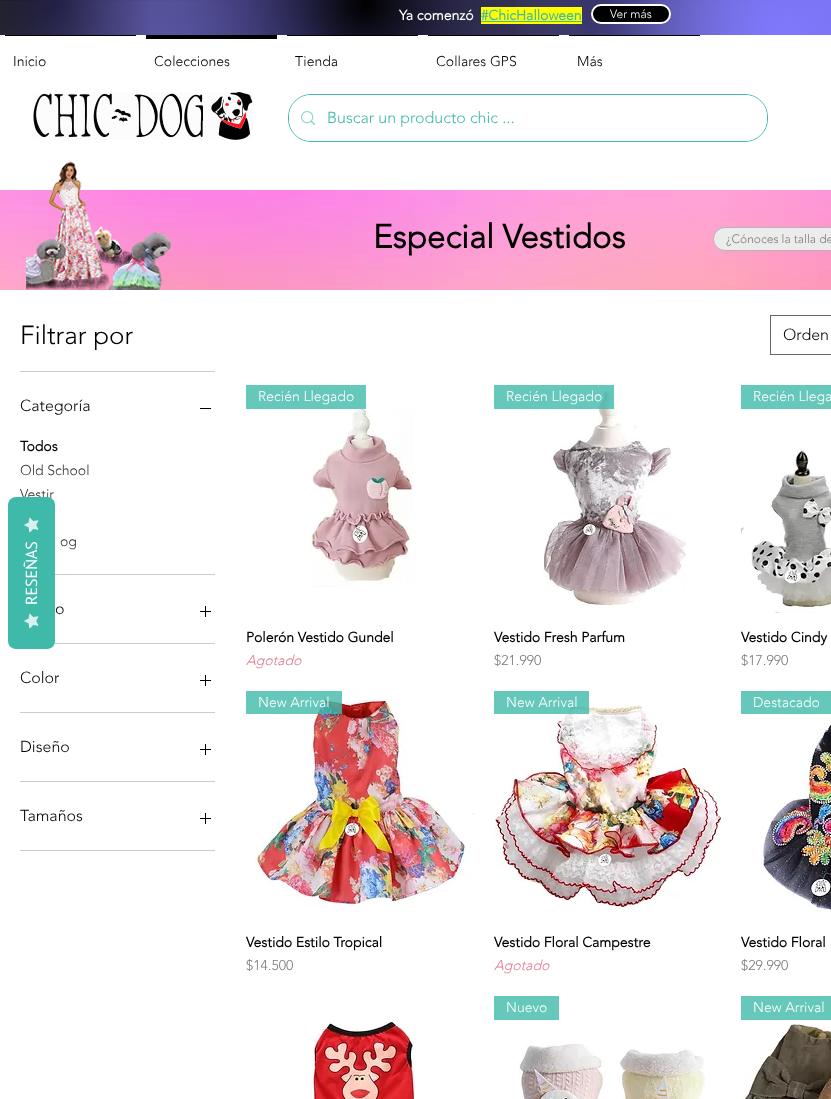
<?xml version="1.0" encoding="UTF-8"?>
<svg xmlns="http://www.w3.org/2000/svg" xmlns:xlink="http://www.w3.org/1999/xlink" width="831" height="1099">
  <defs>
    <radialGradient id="g1" gradientUnits="userSpaceOnUse" cx="479" cy="17" r="501"><stop offset="0" stop-color="#ffffff" /><stop offset="1" stop-color="#ffffff" stop-opacity="0" /></radialGradient>
    <radialGradient id="g2" gradientUnits="userSpaceOnUse" cx="605" cy="13" r="605"><stop offset="0" stop-color="#000000" /><stop offset="0.7" stop-color="#000000" stop-opacity="0" /></radialGradient>
    <radialGradient id="g3" gradientUnits="userSpaceOnUse" cx="60" cy="4.4" r="920"><stop offset="0" stop-color="#000000" /><stop offset="0.7" stop-color="#000000" stop-opacity="0" /></radialGradient>
    <radialGradient id="g4" gradientUnits="userSpaceOnUse" cx="303" cy="34" r="678"><stop offset="0" stop-color="#8079ff" stop-opacity="0.99" /><stop offset="0.5" stop-color="#8079ff" stop-opacity="0" /></radialGradient>
    <radialGradient id="g5" gradientUnits="userSpaceOnUse" cx="961" cy="8" r="962"><stop offset="0" stop-color="#000000" /><stop offset="0.4" stop-color="#000000" stop-opacity="0" /></radialGradient>
    <radialGradient id="g6" gradientUnits="userSpaceOnUse" cx="365" cy="3.9" r="616"><stop offset="0" stop-color="#000000" /><stop offset="0.35" stop-color="#000000" stop-opacity="0" /></radialGradient>
    <radialGradient id="g7" gradientUnits="userSpaceOnUse" cx="907" cy="34" r="907"><stop offset="0" stop-color="#8079ff" /><stop offset="0.35" stop-color="#8079ff" stop-opacity="0" /></radialGradient>
    <radialGradient id="g8" gradientUnits="userSpaceOnUse" cx="784" cy="35" r="785"><stop offset="0" stop-color="#8079ff" /><stop offset="0.35" stop-color="#8079ff" stop-opacity="0" /></radialGradient>
  </defs>
  <rect width="100%" height="100%" fill="#ffffff" />
  <rect width="831" height="1" fill="#b5b4b4" />
  <rect width="831" height="1" fill="url(#g1)" />
  <rect x="190" width="641" height="35" fill="url(#g2)" />
  <rect width="592" height="35" fill="url(#g3)" />
  <rect width="634" height="35" fill="url(#g4)" />
  <rect x="603" width="228" height="35" fill="url(#g5)" />
  <rect x="153" width="419" height="35" fill="url(#g6)" />
  <rect x="597" width="234" height="35" fill="url(#g7)" />
  <rect x="516" width="315" height="35" fill="url(#g8)" />
  <rect x="481" y="7" width="101" height="17" fill="#ffff00" />
  <rect x="481" y="21" width="101" height="1" fill="#3fbaaa" />
  <rect x="592" y="5" width="78" height="18" rx="9" fill="#000000" stroke="#ffffff" stroke-width="2" />
  <rect x="5" y="35" width="131" height="1" fill="#000000" />
  <rect x="146" y="35" width="131" height="4" fill="#000000" />
  <rect x="287" y="35" width="131" height="1" fill="#000000" />
  <rect x="428" y="35" width="131" height="1" fill="#000000" />
  <rect x="569" y="35" width="131" height="1" fill="#000000" />
  <image x="33" y="92" width="220" height="48" xlink:href="image1.png" />
  <rect x="288.5" y="94.5" width="479" height="47" rx="22.5" fill="none" stroke="#3fbaaa" />
  <rect x="289" y="95" width="478" height="46" rx="22" fill="#ffffff" />
  <image x="301" y="111" width="14" height="14" xlink:href="image2.png" />
  <image x="0" y="190" width="831" height="100" xlink:href="image4.png" />
  <image x="26" y="161" width="145" height="129" xlink:href="image3.png" />
  <rect x="713.5" y="227.5" width="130" height="23" rx="11.5" fill="#ececec" stroke="#b5b4b4" />
  <rect x="20" y="371" width="195" height="1" fill="#cccccc" />
  <rect x="55" y="574" width="160" height="1" fill="#cccccc" />
  <rect x="200" y="408" width="11" height="1" fill="#000000" />
  <rect x="54" y="643" width="161" height="1" fill="#cccccc" />
  <image x="200" y="606" width="11" height="11" xlink:href="image5.png" />
  <rect x="20" y="712" width="195" height="1" fill="#cccccc" />
  <image x="200" y="675" width="11" height="11" xlink:href="image5.png" />
  <rect x="20" y="781" width="195" height="1" fill="#cccccc" />
  <image x="200" y="744" width="11" height="11" xlink:href="image5.png" />
  <rect x="20" y="850" width="195" height="1" fill="#cccccc" />
  <image x="200" y="813" width="11" height="11" xlink:href="image5.png" />
  <rect x="770.5" y="315.5" width="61" height="39" fill="none" stroke="#666666" />
  <rect x="246" y="385" width="120" height="24" fill="#65c8bb" />
  <image x="310" y="409" width="104" height="178" xlink:href="image6.png" />
  <image x="542" y="389" width="144" height="217" xlink:href="image7.png" />
  <rect x="494" y="385" width="120" height="24" fill="#3fbaaa" fill-opacity="0.8" />
  <image x="741" y="385" width="90" height="228" xlink:href="image8.png" />
  <rect x="741" y="385" width="90" height="24" fill="#3fbaaa" fill-opacity="0.8" />
  <image x="254" y="699" width="220" height="208" xlink:href="image9.png" />
  <rect x="246" y="691" width="96" height="23" fill="#3fbaaa" fill-opacity="0.8" />
  <image x="494" y="700" width="227" height="211" xlink:href="image10.png" />
  <rect x="494" y="691" width="95" height="23" fill="#3fbaaa" fill-opacity="0.8" />
  <rect x="741" y="691" width="90" height="23" fill="#65c8bb" />
  <image x="761" y="723" width="70" height="188" xlink:href="image11.png" />
  <rect x="494" y="996" width="65" height="24" fill="#65c8bb" />
  <image x="518" y="1044" width="188" height="55" xlink:href="image12.png" />
  <rect x="741" y="996" width="90" height="24" fill="#65c8bb" />
  <image x="741" y="1024" width="90" height="75" xlink:href="image13.png" />
  <image x="311" y="1020" width="104" height="79" xlink:href="image14.png" />
  <text x="399" y="20" style="font-family: 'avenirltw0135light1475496'; font-size: 14px; font-weight: bold; fill: #ffffff">Ya comenzó</text>
  <text x="481" y="20" style="font-family: 'avenirltw0135light1475496'; font-size: 14px; font-weight: bold; fill: #3fbaaa">#ChicHalloween</text>
  <text x="610" y="18" style="font-family: 'avenirltw0135light1475496'; font-size: 12px; font-weight: 300; fill: #ffffff">Ver más</text>
  <text x="13" y="66" style="font-family: 'avenirltw0135light1475496'; font-size: 14px; font-weight: 300; fill: #000000">Inicio</text>
  <text x="154" y="66" style="font-family: 'avenirltw0135light1475496'; font-size: 14px; font-weight: 300; fill: #000000">Colecciones</text>
  <text x="295" y="66" style="font-family: 'avenirltw0135light1475496'; font-size: 14px; font-weight: 300; fill: #000000">Tienda</text>
  <text x="436" y="66" style="font-family: 'avenirltw0135light1475496'; font-size: 14px; font-weight: 300; fill: #000000">Collares GPS</text>
  <text x="577" y="66" style="font-family: 'avenirltw0135light1475496'; font-size: 14px; font-weight: 300; fill: #000000">Más</text>
  <text x="327" y="123" style="font-family: 'avenirltw0135light1475496'; font-size: 16px; font-weight: 300; fill: #3fbaaa">Buscar un producto chic ...</text>
  <text x="373" y="248" style="font-family: 'avenirltw0135light1475496'; font-size: 33px; font-weight: bold; fill: #000000">Especial Vestidos</text>
  <text x="726" y="243" style="font-family: 'avenirltw0135light1475496'; font-size: 12px; font-weight: 300; fill: #7a7979">¿Cónoces la talla de</text>
  <text x="20" y="344" style="font-family: 'avenirltw0135light1475496'; font-size: 26px; font-weight: 300; fill: #000000">Filtrar por</text>
  <text x="20" y="411" style="font-family: 'avenirltw0135light1475496'; font-size: 16px; font-weight: 300; fill: #000000">Categoría</text>
  <text x="20" y="451" style="font-family: 'avenirltw0135light1475496'; font-size: 14px; font-weight: bold; fill: #000000">Todos</text>
  <text x="20" y="475" style="font-family: 'avenirltw0135light1475496'; font-size: 14px; font-weight: 300; fill: #333333">Old School</text>
  <text x="20" y="499" style="font-family: 'avenirltw0135light1475496'; font-size: 14px; font-weight: 300; fill: #333333">Vestir</text>
  <text x="60" y="546" style="font-family: 'avenirltw0135light1475496'; font-size: 14px; font-weight: 300; fill: #333333">og</text>
  <text x="55" y="614" style="font-family: 'avenirltw0135light1475496'; font-size: 16px; font-weight: 300; fill: #000000">o</text>
  <text x="20" y="683" style="font-family: 'avenirltw0135light1475496'; font-size: 16px; font-weight: 300; fill: #000000">Color</text>
  <text x="20" y="752" style="font-family: 'avenirltw0135light1475496'; font-size: 16px; font-weight: 300; fill: #000000">Diseño</text>
  <text x="20" y="821" style="font-family: 'avenirltw0135light1475496'; font-size: 16px; font-weight: 300; fill: #000000">Tamaños</text>
  <text x="783" y="340" style="font-family: 'avenirltw0135light1475496'; font-size: 16px; font-weight: 300; fill: #000000">Orden</text>
  <text x="258" y="401" style="font-family: 'avenirltw0135light1475496'; font-size: 14px; font-weight: 300; fill: #ffffff">Recién Llegado</text>
  <text x="246" y="642" style="font-family: 'avenirltw0135light1475496'; font-size: 14px; font-weight: bold; fill: #000000">Polerón Vestido Gundel</text>
  <text x="246" y="665" style="font-family: 'avenirltw0135light1475496'; font-size: 14px; font-weight: 300; font-style: italic; fill: #e27b90">Agotado</text>
  <text x="506" y="401" style="font-family: 'avenirltw0135light1475496'; font-size: 14px; font-weight: 300; fill: #ffffff">Recién Llegado</text>
  <text x="494" y="642" style="font-family: 'avenirltw0135light1475496'; font-size: 14px; font-weight: bold; fill: #000000">Vestido Fresh Parfum</text>
  <text x="494" y="665" style="font-family: 'avenirltw0135light1475496'; font-size: 14px; font-weight: 300; fill: #7a7979">$21.990</text>
  <text x="753" y="401" style="font-family: 'avenirltw0135light1475496'; font-size: 14px; font-weight: 300; fill: #ffffff">Recién Llega</text>
  <text x="741" y="642" style="font-family: 'avenirltw0135light1475496'; font-size: 14px; font-weight: bold; fill: #000000">Vestido Cindy</text>
  <text x="741" y="665" style="font-family: 'avenirltw0135light1475496'; font-size: 14px; font-weight: 300; fill: #7a7979">$17.990</text>
  <text x="258" y="707" style="font-family: 'avenirltw0135light1475496'; font-size: 14px; font-weight: 300; fill: #ffffff">New Arrival</text>
  <text x="246" y="947" style="font-family: 'avenirltw0135light1475496'; font-size: 14px; font-weight: bold; fill: #000000">Vestido Estilo Tropical</text>
  <text x="246" y="970" style="font-family: 'avenirltw0135light1475496'; font-size: 14px; font-weight: 300; fill: #7a7979">$14.500</text>
  <text x="506" y="707" style="font-family: 'avenirltw0135light1475496'; font-size: 14px; font-weight: 300; fill: #ffffff">New Arrival</text>
  <text x="494" y="947" style="font-family: 'avenirltw0135light1475496'; font-size: 14px; font-weight: bold; fill: #000000">Vestido Floral Campestre</text>
  <text x="494" y="970" style="font-family: 'avenirltw0135light1475496'; font-size: 14px; font-weight: 300; font-style: italic; fill: #e27b90">Agotado</text>
  <text x="753" y="707" style="font-family: 'avenirltw0135light1475496'; font-size: 14px; font-weight: 300; fill: #ffffff">Destacado</text>
  <text x="741" y="947" style="font-family: 'avenirltw0135light1475496'; font-size: 14px; font-weight: bold; fill: #000000">Vestido Floral</text>
  <text x="741" y="970" style="font-family: 'avenirltw0135light1475496'; font-size: 14px; font-weight: 300; fill: #7a7979">$29.990</text>
  <text x="506" y="1012" style="font-family: 'avenirltw0135light1475496'; font-size: 14px; font-weight: 300; fill: #ffffff">Nuevo</text>
  <text x="753" y="1012" style="font-family: 'avenirltw0135light1475496'; font-size: 14px; font-weight: 300; fill: #ffffff">New Arrival</text>
  <path d="M 8 641 v -136 c 0 -5 4 -8 8 -8 h 31 c 4 0 8 3 8 8 v 136 c 0 5 -4 8 -8 8 h -31 c -4 0 -8 -3 -8 -8 z" fill="#3fbaaa" />
  <image x="24" y="517" width="15" height="16" xlink:href="image15.png" />
  <text x="37" y="605" transform="rotate(-90 37 605)" style="font-family: PT Sans; font-size: 16px; fill: #ffffff">RESEÑAS</text>
  <image x="24" y="613" width="15" height="16" xlink:href="image15.png" />
</svg>
